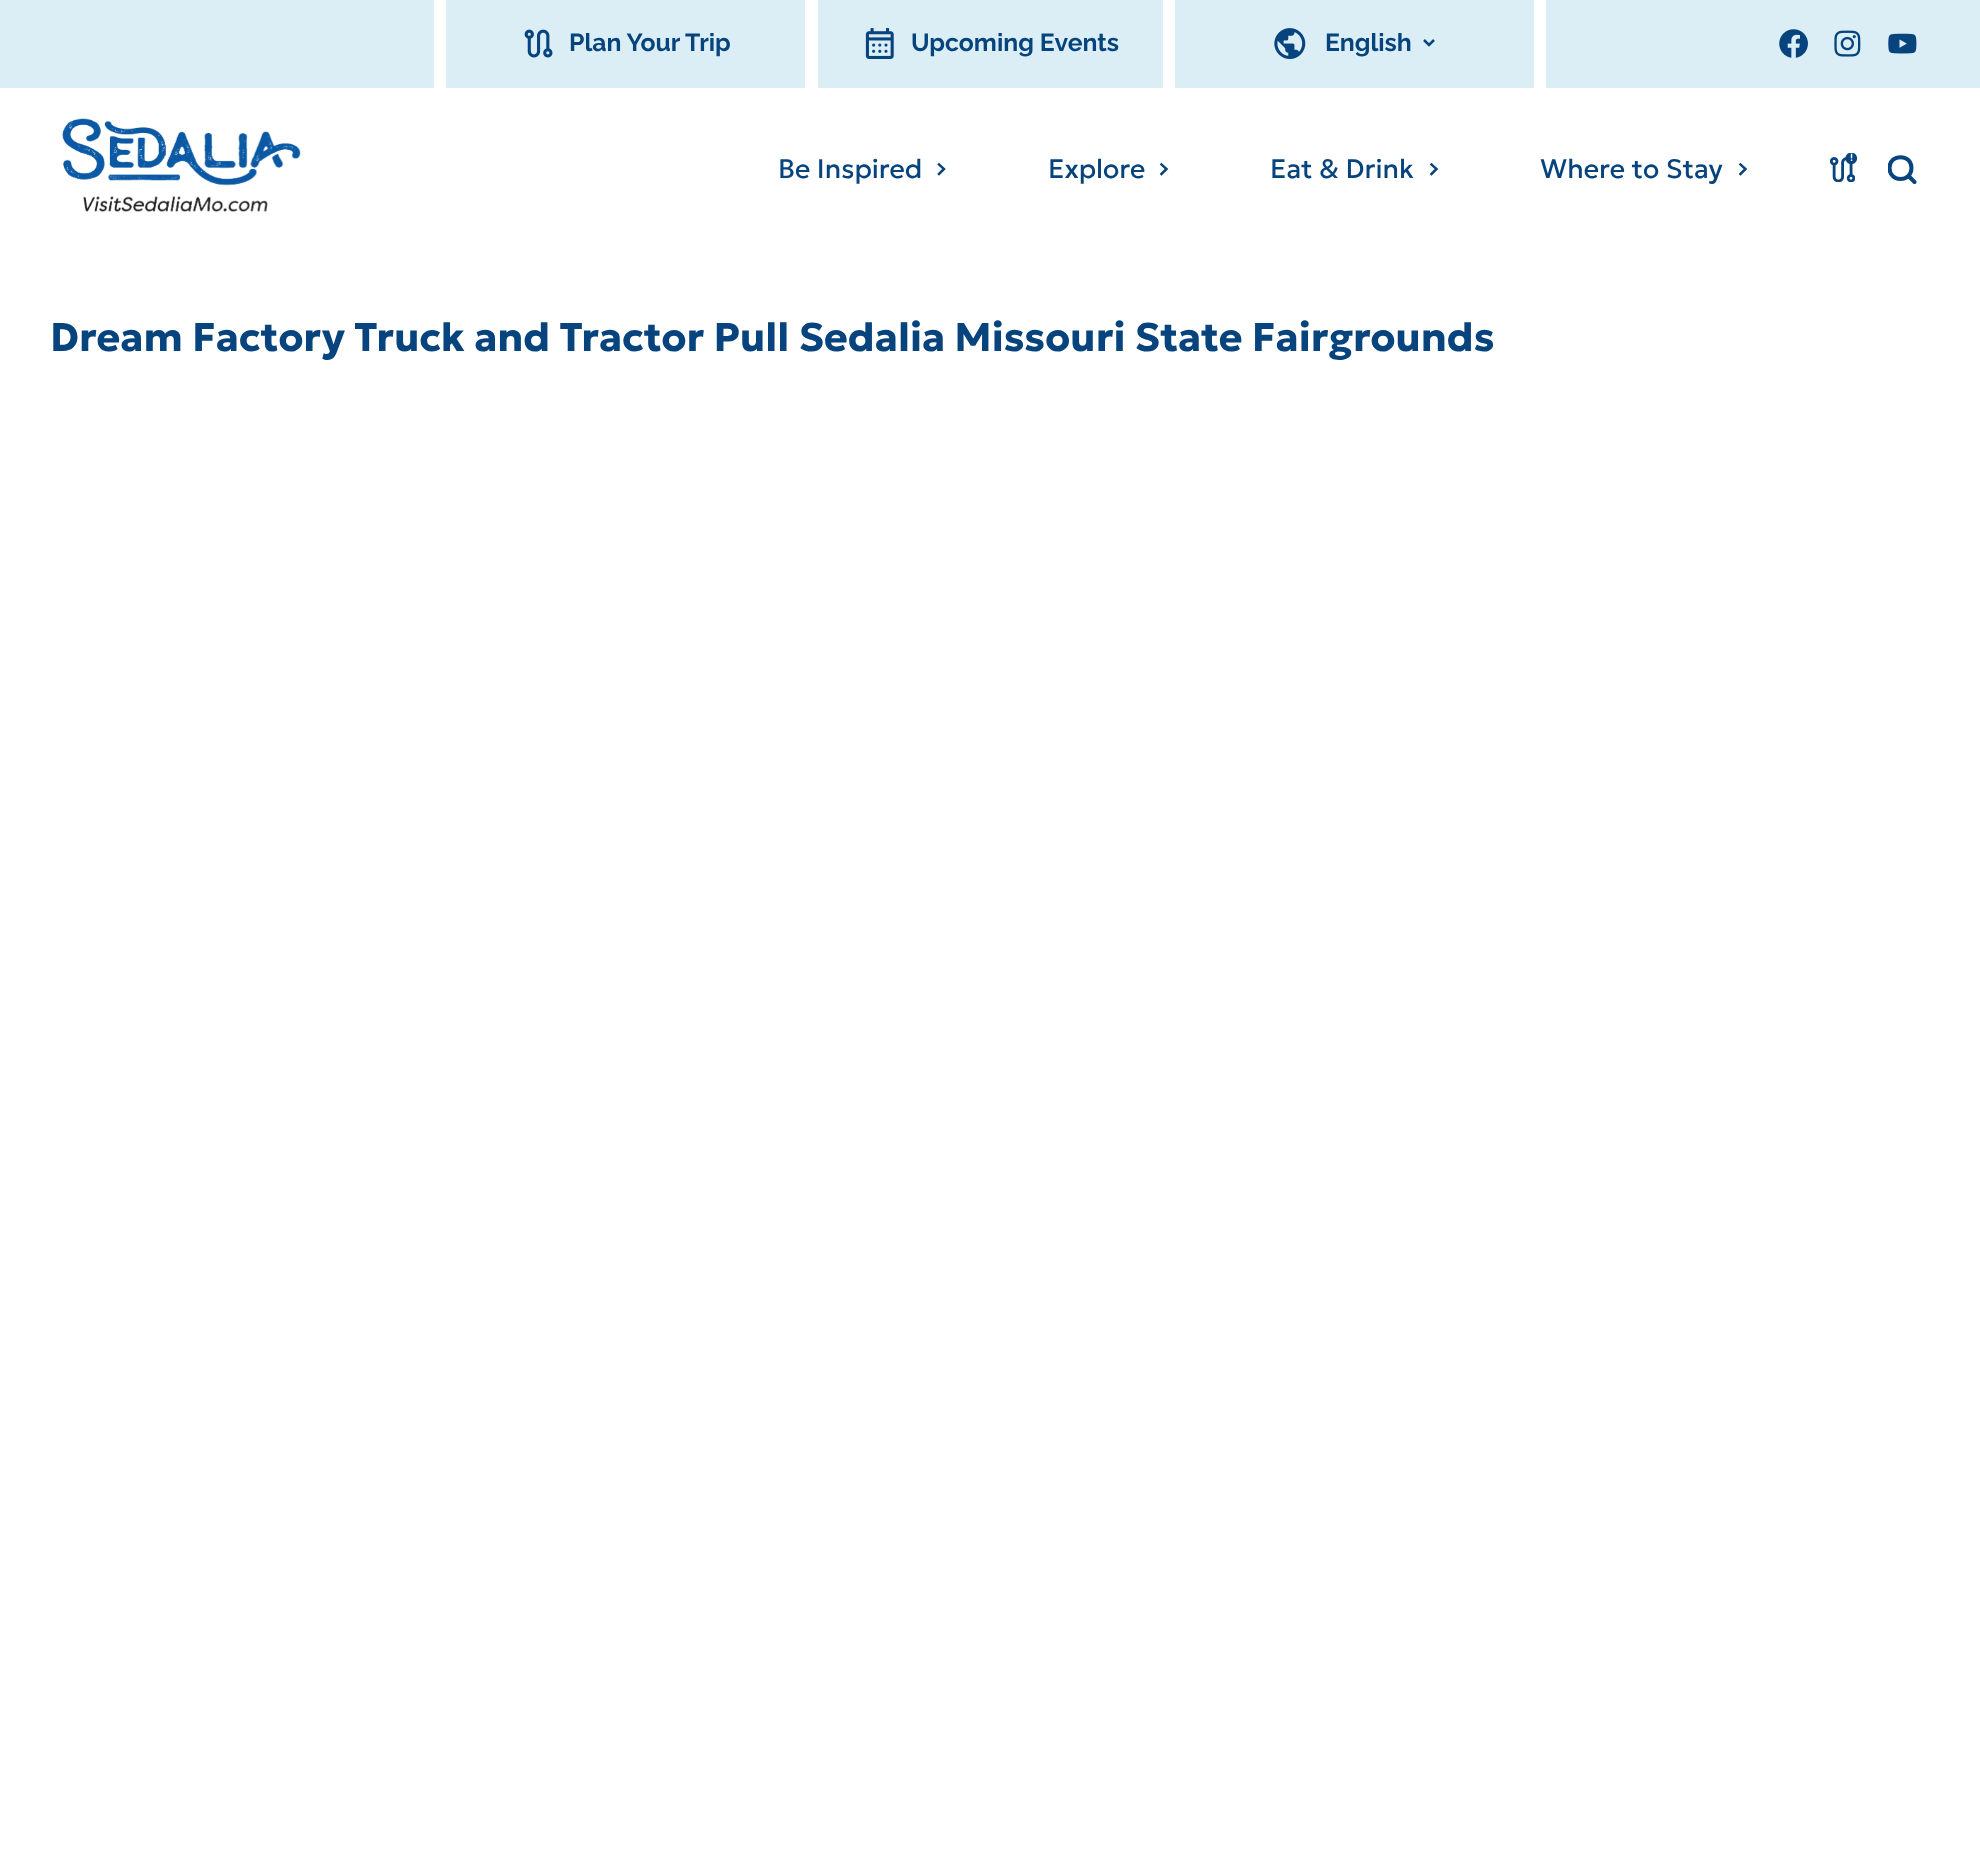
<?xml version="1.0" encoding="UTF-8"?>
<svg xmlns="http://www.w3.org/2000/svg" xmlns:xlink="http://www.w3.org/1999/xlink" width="1980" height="1857">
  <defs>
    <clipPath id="clip1"><rect x="1888" y="155" width="30" height="29" /></clipPath>
  </defs>
  <rect width="100%" height="100%" fill="#ffffff" />
  <rect width="1980" height="88" fill="#dceef5" />
  <rect x="434" width="12" height="88" fill="#ffffff" />
  <image x="524" y="29" width="29" height="29" xlink:href="image1.png" />
  <rect x="1163" width="12" height="88" fill="#ffffff" />
  <rect x="805" width="13" height="88" fill="#ffffff" />
  <image x="865" y="28" width="29" height="31" xlink:href="image2.png" />
  <rect x="1534" width="12" height="88" fill="#ffffff" />
  <image x="1274" y="28" width="32" height="31" xlink:href="image3.png" />
  <path d="M 1424 40 l 5 5 l 5 -5" fill="none" stroke="#07447e" stroke-width="2.5" />
  <image x="1779" y="29" width="29" height="29" xlink:href="image4.png" />
  <image x="1834" y="30" width="27" height="27" xlink:href="image5.png" />
  <image x="1888" y="33" width="29" height="21" xlink:href="image6.png" />
  <image x="62" y="118" width="239" height="94" xlink:href="image7.png" />
  <image x="1830" y="153" width="28" height="29" xlink:href="image8.png" />
  <g clip-path="url(#clip1)">
    <path d="M 1914.5 182 l -6 -6 m 3 -8 c 0 14.5 -22 14.5 -22 0 c 0 -14.5 22 -14.5 22 0 z" fill="none" stroke="#08447e" stroke-width="4" stroke-linecap="round" />
  </g>
  <path d="M 939 174 l 5 -5 l -5 -4.5" fill="none" stroke="#08447e" stroke-width="2.5" stroke-linecap="square" />
  <path d="M 1161.5 174 l 5 -5 l -5 -4.5" fill="none" stroke="#08447e" stroke-width="2.5" stroke-linecap="square" />
  <path d="M 1431.5 174 l 5 -5 l -5 -4.5" fill="none" stroke="#08447e" stroke-width="2.5" stroke-linecap="square" />
  <path d="M 1740.5 174 l 5 -5 l -5 -4.5" fill="none" stroke="#08447e" stroke-width="2.5" stroke-linecap="square" />
  <text x="569" y="51" style="font-family: Raleway; font-size: 24.75px; font-weight: bold; fill: #07447e">Plan Your Trip</text>
  <text x="911" y="51" style="font-family: Raleway; font-size: 24.75px; font-weight: bold; fill: #07447e">Upcoming Events</text>
  <text x="1325" y="51" style="font-family: Raleway; font-size: 24.75px; font-weight: bold; fill: #07447e">English</text>
  <text x="1850" y="161" style="font-family: Raleway; font-size: 10px; font-weight: bold; fill: #ffffff">!</text>
  <text x="778" y="178" style="font-family: Geologica; font-size: 26.75px; fill: #07447e">Be Inspired</text>
  <text x="1048" y="178" style="font-family: Geologica; font-size: 26.75px; fill: #07447e">Explore</text>
  <text x="1270" y="178" style="font-family: Geologica; font-size: 26.75px; fill: #07447e">Eat &amp; Drink</text>
  <text x="1540" y="178" style="font-family: Geologica; font-size: 26.75px; fill: #07447e">Where to Stay</text>
  <text x="50" y="351" style="font-family: Geologica; font-size: 40px; font-weight: bold; fill: #07447e">Dream Factory Truck and Tractor Pull Sedalia Missouri State Fairgrounds</text>
</svg>
